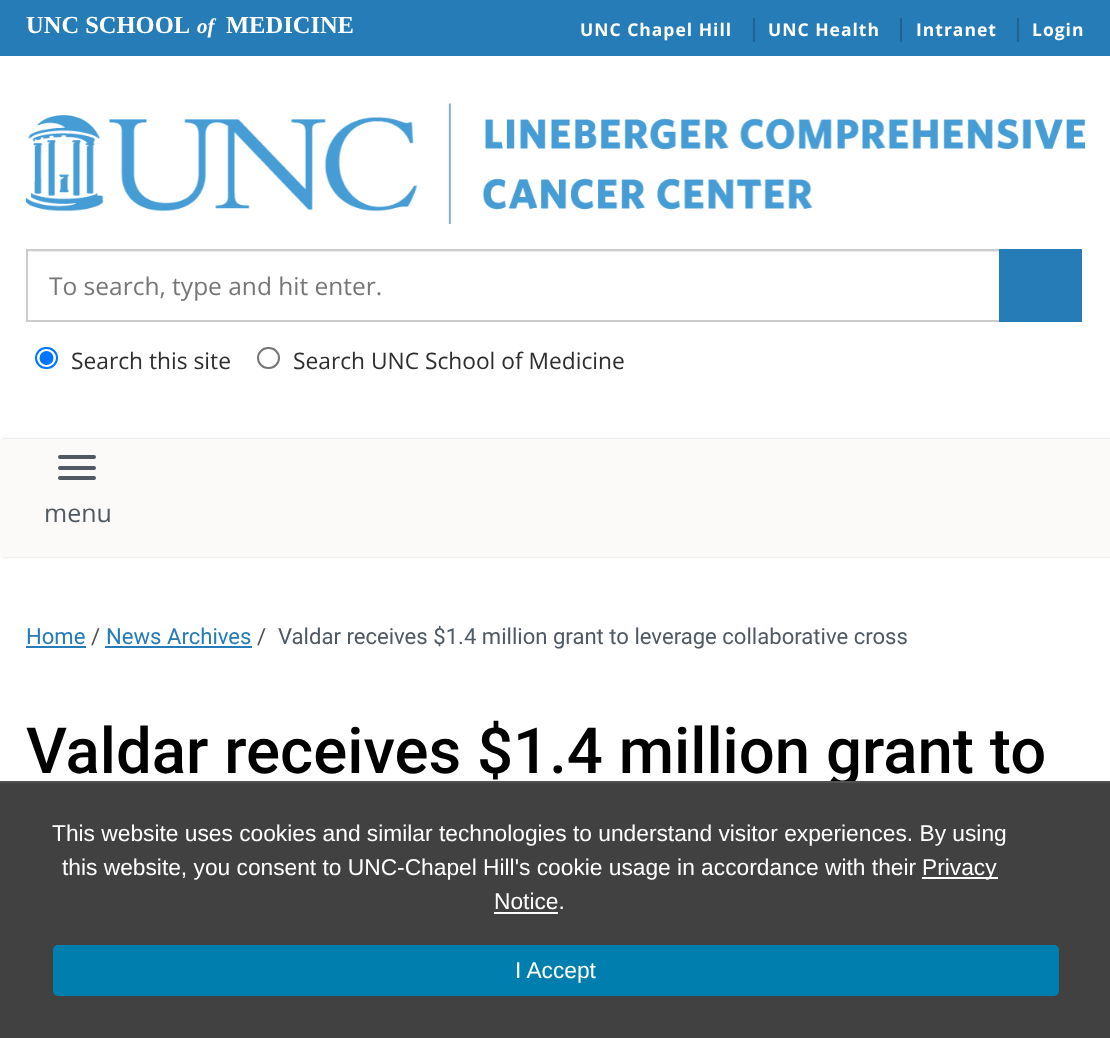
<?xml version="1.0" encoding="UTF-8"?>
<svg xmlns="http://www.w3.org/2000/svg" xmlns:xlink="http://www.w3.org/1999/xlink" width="1110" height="1038">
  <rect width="100%" height="100%" fill="#ffffff" />
  <rect width="1110" height="56" fill="#257cb7" />
  <rect x="753" y="18" width="2" height="24" fill="#1e6392" />
  <rect x="900" y="18" width="2" height="24" fill="#1e6392" />
  <rect x="1017" y="18" width="2" height="24" fill="#1e6392" />
  <image x="26" y="103" width="1059" height="121" xlink:href="image1.png" />
  <rect x="28" y="251" width="971" height="1" fill="#ececec" />
  <rect x="27" y="250" width="973" height="71" fill="none" stroke="#cccccc" stroke-width="2" />
  <rect x="999" y="249" width="83" height="73" fill="#257cb7" />
  <rect x="36" y="348" width="21" height="20" rx="10" fill="none" stroke="#0075ff" stroke-width="2" />
  <circle cx="46.5" cy="358" r="7" fill="#0075ff" />
  <rect x="258" y="348" width="21" height="20" rx="10" fill="none" stroke="#767676" stroke-width="2" />
  <rect x="2" y="439" width="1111" height="118" fill="#bdbdbd" fill-opacity="0.75" filter="blur(1px)" />
  <rect y="439" width="1110" height="118" fill="#fbfaf8" />
  <rect x="58" y="455" width="38" height="4" rx="2" fill="#505962" />
  <rect x="58" y="466" width="38" height="4" rx="2" fill="#505962" />
  <rect x="58" y="476" width="38" height="4" rx="2" fill="#505962" />
  <rect x="26" y="646" width="60" height="2" fill="#257cb7" />
  <rect x="105" y="646" width="147" height="2" fill="#257cb7" />
  <text x="26" y="33" style="font-family: Liberation Serif; font-size: 24.5px; font-weight: bold; fill: #ffffff">UNC SCHOOL</text>
  <text x="197" y="33" style="font-family: Liberation Serif; font-size: 21px; font-weight: bold; font-style: italic; fill: #ffffff">of</text>
  <text x="226" y="33" style="font-family: Liberation Serif; font-size: 24.5px; font-weight: bold; fill: #ffffff">MEDICINE</text>
  <text x="580" y="36" style="font-family: Open Sans; font-size: 17.5px; font-weight: bold; letter-spacing: 1px; fill: #ffffff">UNC Chapel Hill</text>
  <text x="768" y="36" style="font-family: Open Sans; font-size: 17.5px; font-weight: bold; letter-spacing: 1px; fill: #ffffff">UNC Health</text>
  <text x="916" y="36" style="font-family: Open Sans; font-size: 17.5px; font-weight: bold; letter-spacing: 1px; fill: #ffffff">Intranet</text>
  <text x="1032" y="36" style="font-family: Open Sans; font-size: 17.5px; font-weight: bold; letter-spacing: 1px; fill: #ffffff">Login</text>
  <text x="49" y="295" style="font-family: Open Sans; font-size: 24.5px; fill: #767676">To search, type and hit enter.</text>
  <text x="71" y="369" style="font-family: Open Sans; font-size: 22.75px; fill: #2e2e2e">Search this site</text>
  <text x="293" y="369" style="font-family: Open Sans; font-size: 22.75px; fill: #2e2e2e">Search UNC School of Medicine</text>
  <text x="44" y="522" style="font-family: Open Sans; font-size: 25px; fill: #505962">menu</text>
  <text x="26" y="644" style="font-family: Roboto; font-size: 22.1px; fill: #257cb7">Home</text>
  <text x="91" y="644" style="font-family: Roboto; font-size: 22.1px; fill: #4f4f4f">/</text>
  <text x="106" y="644" style="font-family: Roboto; font-size: 22.1px; fill: #257cb7">News Archives</text>
  <text x="257" y="644" style="font-family: Roboto; font-size: 22.1px; fill: #4f4f4f">/</text>
  <text x="278" y="644" style="font-family: Roboto; font-size: 22.1px; fill: #505962">Valdar receives $1.4 million grant to leverage collaborative cross</text>
  <text x="26" y="773" style="font-family: Roboto; font-size: 63.5px; font-weight: 500; fill: #000000">Valdar receives $1.4 million grant to</text>
  <rect y="783" width="1110" height="255" fill="#414141" />
  <rect y="781" width="1110" height="2" fill="#515151" />
  <text x="52" y="841" style="font-family: Liberation Sans; font-size: 22.75px; fill: #ffffff">This website uses cookies and similar technologies to understand visitor experiences. By using</text>
  <text x="62" y="875" style="font-family: Liberation Sans; font-size: 22.75px; fill: #ffffff">this website, you consent to UNC-Chapel Hill's cookie usage in accordance with their</text>
  <rect x="922" y="877" width="76" height="2" fill="#ffffff" />
  <text x="922" y="875" style="font-family: Liberation Sans; font-size: 22.75px; fill: #ffffff">Privacy</text>
  <text x="494" y="909" style="font-family: Liberation Sans; font-size: 22.75px; fill: #ffffff">Notice.</text>
  <rect x="494" y="912" width="64" height="2" fill="#ffffff" />
  <rect x="53" y="945" width="1006" height="51" rx="5" fill="#007fae" />
  <text x="515" y="978" style="font-family: Liberation Sans; font-size: 22.75px; fill: #ffffff">I Accept</text>
</svg>
